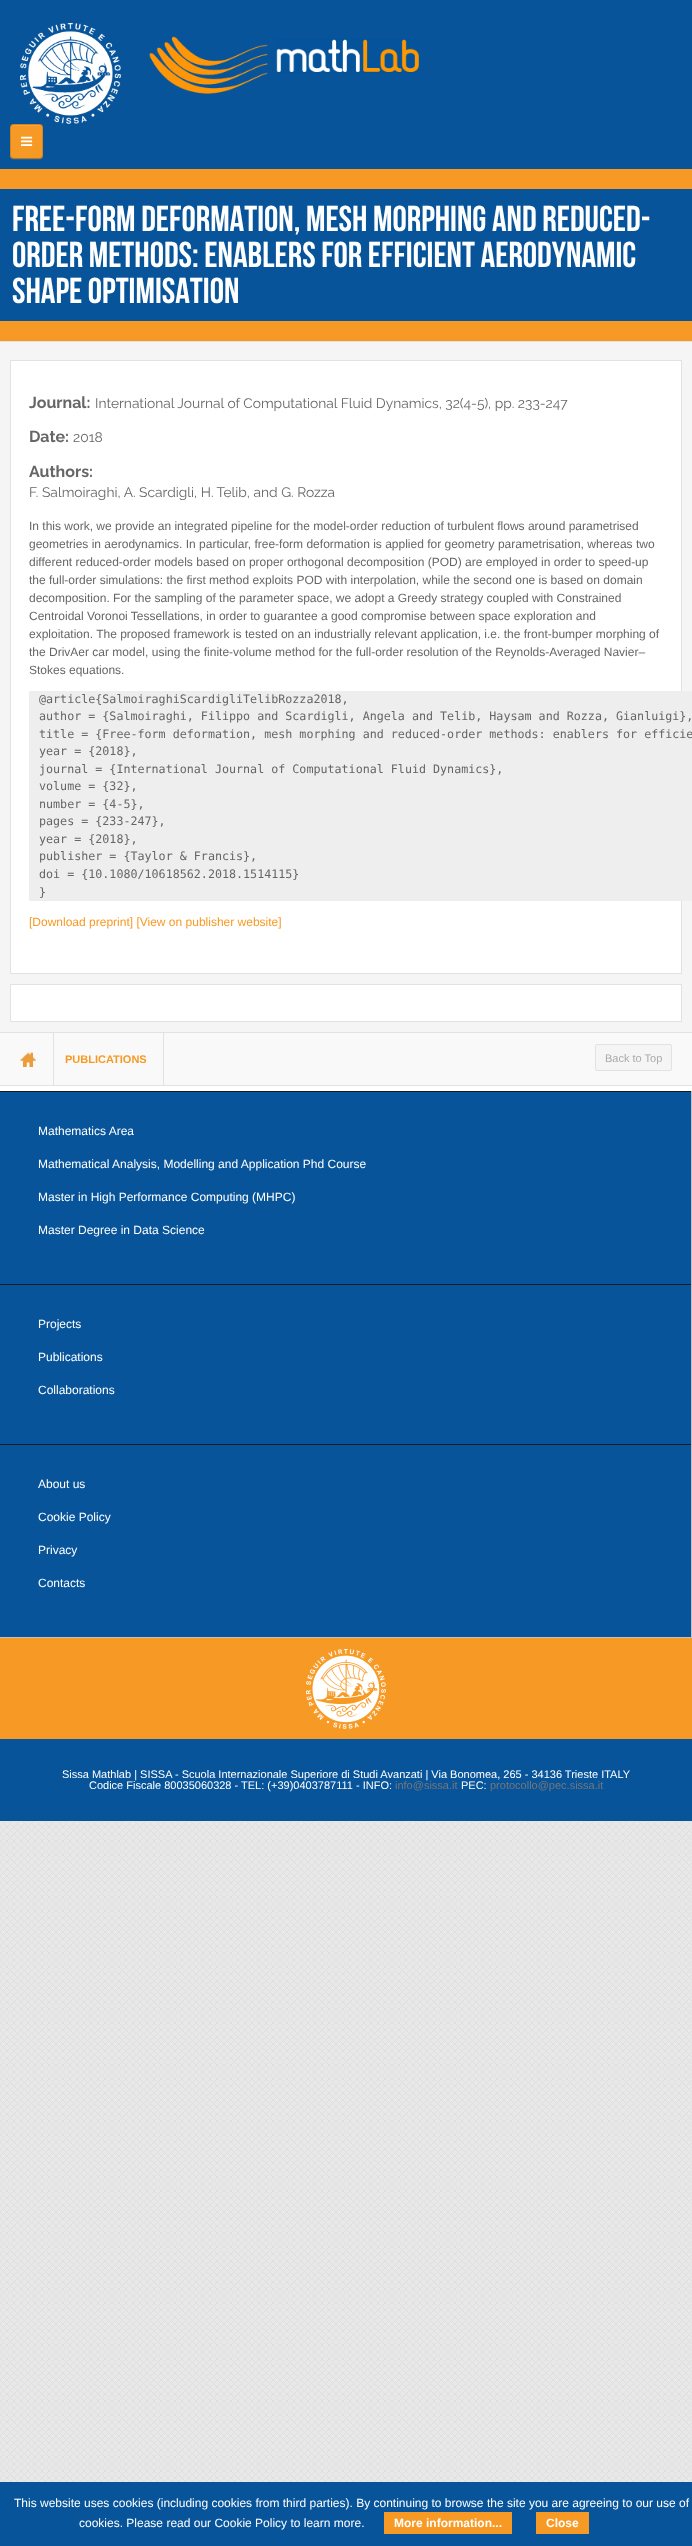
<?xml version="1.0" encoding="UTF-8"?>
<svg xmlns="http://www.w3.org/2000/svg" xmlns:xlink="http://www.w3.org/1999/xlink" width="692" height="2546">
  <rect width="100%" height="100%" fill="#ffffff" />
  <image x="0" y="1821" width="692" height="661" xlink:href="image1.png" />
  <rect width="692" height="169" fill="#07549a" />
  <image x="20" y="23" width="101" height="101" xlink:href="image2.png" />
  <image x="149" y="36" width="270" height="58" xlink:href="image3.png" />
  <path d="M 10 155 c 0 5.5 3.5 5 8 5 h 17 c 4.5 0 8 0.5 8 -5 c 0 2 -2 4 -4 4 h -25 c -2 0 -4 -2 -4 -4 z" fill="#1a61a2" />
  <rect x="10" y="124" width="33" height="35" rx="4" fill="#f79a25" />
  <path d="M 14 126 h 25 c 2 0 3 1 3 3 c 0 -5 -3 -4 -7 -4 h -17 c -4 0 -7 -1 -7 4 c 0 -2 1 -3 3 -3 z" fill="#f8a43b" />
  <path d="M 41.5 157.5 c -0.5 0.5 -1.5 1 -2.5 1 h -25 c -1 0 -2 -0.5 -2.5 -1" fill="none" stroke="#000000" stroke-opacity="0.25" />
  <path d="M 11.5 157.5 c -1.5 -1.5 -1 -5 -1 -7 v -9 c 0 -19.5 -3 -17 16 -17 c 19 0 16 -2.5 16 17 v 9 c 0 2 0.5 5.5 -1 7" fill="none" stroke="#000000" stroke-opacity="0.15" />
  <image x="21" y="136" width="12" height="10" xlink:href="image4.png" />
  <rect y="342" width="692" height="690" fill="#f5f5f5" />
  <rect y="169" width="692" height="172" fill="#f79a25" />
  <rect y="341" width="692" height="1" fill="#e2e2e2" />
  <rect y="189" width="692" height="132" fill="#07549a" />
  <rect x="10.5" y="360.5" width="671" height="613" fill="#ffffff" stroke="#e2e2e2" />
  <rect x="29" y="691" width="663" height="210" fill="#eeeeee" />
  <rect x="10.5" y="984.5" width="671" height="37" fill="#ffffff" stroke="#e2e2e2" />
  <rect y="1033" width="692" height="52" fill="#f9f9f9" />
  <rect y="1032" width="692" height="1" fill="#e2e2e2" />
  <rect y="1085" width="692" height="1" fill="#e2e2e2" />
  <image x="20" y="1052" width="16" height="15" xlink:href="image5.png" />
  <rect x="53" y="1033" width="1" height="52" fill="#e2e2e2" />
  <rect x="163" y="1033" width="1" height="52" fill="#e2e2e2" />
  <rect x="595.5" y="1044.5" width="76" height="26" rx="1.5" fill="#f5f5f5" stroke="#e2e2e2" />
  <rect y="1092" width="691" height="545" fill="#07549a" />
  <rect y="1091" width="692" height="1" fill="#1a1a1a" />
  <rect x="691" y="1091" width="1" height="193" fill="#c2c2c2" />
  <rect y="1284" width="692" height="1" fill="#1a1a1a" />
  <rect x="691" y="1284" width="1" height="160" fill="#c2c2c2" />
  <rect y="1444" width="692" height="1" fill="#1a1a1a" />
  <rect x="691" y="1444" width="1" height="193" fill="#c2c2c2" />
  <rect y="1739" width="692" height="82" fill="#07549a" />
  <rect y="1637" width="692" height="1" fill="#c2c2c2" />
  <rect y="1638" width="692" height="101" fill="#f79a25" />
  <image x="306" y="1649" width="80" height="80" xlink:href="image6.png" />
  <rect y="2482" width="692" height="64" fill="#07549a" />
  <rect x="384" y="2512" width="128" height="22" fill="#f79a25" />
  <rect x="536" y="2512" width="53" height="22" fill="#f79a25" />
  <text x="12" y="231" style="font-family: Bebas Neue; font-size: 36px; fill: #ffffff">Free-form deformation, mesh morphing and reduced-</text>
  <text x="12" y="267" style="font-family: Bebas Neue; font-size: 36px; fill: #ffffff">order methods: enablers for efficient aerodynamic</text>
  <text x="12" y="303" style="font-family: Bebas Neue; font-size: 36px; fill: #ffffff">shape optimisation</text>
  <text x="29" y="408" style="font-family: Raleway; font-size: 16px; font-weight: bold; fill: #666666">Journal:</text>
  <text x="95" y="408" style="font-family: Raleway; font-size: 13.8px; fill: #666666">International Journal of Computational Fluid Dynamics, 32(4-5), pp. 233-247</text>
  <text x="29" y="442" style="font-family: Raleway; font-size: 16px; font-weight: bold; fill: #666666">Date:</text>
  <text x="73" y="442" style="font-family: Raleway; font-size: 13.8px; fill: #666666">2018</text>
  <text x="29" y="477" style="font-family: Raleway; font-size: 16px; font-weight: bold; fill: #666666">Authors:</text>
  <text x="29" y="497" style="font-family: Raleway; font-size: 13.8px; fill: #666666">F. Salmoiraghi, A. Scardigli, H. Telib, and G. Rozza</text>
  <text x="29" y="530" style="font-family: Liberation Sans; font-size: 12px; fill: #666666">In this work, we provide an integrated pipeline for the model-order reduction of turbulent flows around parametrised</text>
  <text x="29" y="548" style="font-family: Liberation Sans; font-size: 12px; fill: #666666">geometries in aerodynamics. In particular, free-form deformation is applied for geometry parametrisation, whereas two</text>
  <text x="29" y="566" style="font-family: Liberation Sans; font-size: 12px; fill: #666666">different reduced-order models based on proper orthogonal decomposition (POD) are employed in order to speed-up</text>
  <text x="29" y="584" style="font-family: Liberation Sans; font-size: 12px; fill: #666666">the full-order simulations: the first method exploits POD with interpolation, while the second one is based on domain</text>
  <text x="29" y="602" style="font-family: Liberation Sans; font-size: 12px; fill: #666666">decomposition. For the sampling of the parameter space, we adopt a Greedy strategy coupled with Constrained</text>
  <text x="29" y="620" style="font-family: Liberation Sans; font-size: 12px; fill: #666666">Centroidal Voronoi Tessellations, in order to guarantee a good compromise between space exploration and</text>
  <text x="29" y="638" style="font-family: Liberation Sans; font-size: 12px; fill: #666666">exploitation. The proposed framework is tested on an industrially relevant application, i.e. the front-bumper morphing of</text>
  <text x="29" y="656" style="font-family: Liberation Sans; font-size: 12px; fill: #666666">the DrivAer car model, using the finite-volume method for the full-order resolution of the Reynolds-Averaged Navier–</text>
  <text x="29" y="674" style="font-family: Liberation Sans; font-size: 12px; fill: #666666">Stokes equations.</text>
  <text x="39" y="703" style="font-family: DejaVu Sans Mono; font-size: 11.7px; fill: #666666">@article{SalmoiraghiScardigliTelibRozza2018,</text>
  <text x="39" y="720" style="font-family: DejaVu Sans Mono; font-size: 11.7px; fill: #666666">author = {Salmoiraghi, Filippo and Scardigli, Angela and Telib, Haysam and Rozza, Gianluigi},</text>
  <text x="39" y="738" style="font-family: DejaVu Sans Mono; font-size: 11.7px; fill: #666666">title = {Free-form deformation, mesh morphing and reduced-order methods: enablers for efficie</text>
  <text x="39" y="755" style="font-family: DejaVu Sans Mono; font-size: 11.7px; fill: #666666">year = {2018},</text>
  <text x="39" y="773" style="font-family: DejaVu Sans Mono; font-size: 11.7px; fill: #666666">journal = {International Journal of Computational Fluid Dynamics},</text>
  <text x="39" y="790" style="font-family: DejaVu Sans Mono; font-size: 11.7px; fill: #666666">volume = {32},</text>
  <text x="39" y="808" style="font-family: DejaVu Sans Mono; font-size: 11.7px; fill: #666666">number = {4-5},</text>
  <text x="39" y="825" style="font-family: DejaVu Sans Mono; font-size: 11.7px; fill: #666666">pages = {233-247},</text>
  <text x="39" y="843" style="font-family: DejaVu Sans Mono; font-size: 11.7px; fill: #666666">year = {2018},</text>
  <text x="39" y="860" style="font-family: DejaVu Sans Mono; font-size: 11.7px; fill: #666666">publisher = {Taylor &amp; Francis},</text>
  <text x="39" y="878" style="font-family: DejaVu Sans Mono; font-size: 11.7px; fill: #666666">doi = {10.1080/10618562.2018.1514115}</text>
  <text x="39" y="896" style="font-family: DejaVu Sans Mono; font-size: 11.7px; fill: #666666">}</text>
  <text x="29" y="926" style="font-family: Liberation Sans; font-size: 12px; fill: #f79a25">[Download preprint] [View on publisher website]</text>
  <text x="65" y="1063" style="font-family: Liberation Sans; font-size: 11px; font-weight: bold; fill: #f79a25">PUBLICATIONS</text>
  <text x="605" y="1062" style="font-family: Liberation Sans; font-size: 11px; fill: #aaaaaa">Back to Top</text>
  <text x="38" y="1135" style="font-family: Liberation Sans; font-size: 12px; fill: #ffffff">Mathematics Area</text>
  <text x="38" y="1168" style="font-family: Liberation Sans; font-size: 12px; fill: #ffffff">Mathematical Analysis, Modelling and Application Phd Course</text>
  <text x="38" y="1201" style="font-family: Liberation Sans; font-size: 12px; fill: #ffffff">Master in High Performance Computing (MHPC)</text>
  <text x="38" y="1234" style="font-family: Liberation Sans; font-size: 12px; fill: #ffffff">Master Degree in Data Science</text>
  <text x="38" y="1328" style="font-family: Liberation Sans; font-size: 12px; fill: #ffffff">Projects</text>
  <text x="38" y="1361" style="font-family: Liberation Sans; font-size: 12px; fill: #ffffff">Publications</text>
  <text x="38" y="1394" style="font-family: Liberation Sans; font-size: 12px; fill: #ffffff">Collaborations</text>
  <text x="38" y="1488" style="font-family: Liberation Sans; font-size: 12px; fill: #ffffff">About us</text>
  <text x="38" y="1521" style="font-family: Liberation Sans; font-size: 12px; fill: #ffffff">Cookie Policy</text>
  <text x="38" y="1554" style="font-family: Liberation Sans; font-size: 12px; fill: #ffffff">Privacy</text>
  <text x="38" y="1587" style="font-family: Liberation Sans; font-size: 12px; fill: #ffffff">Contacts</text>
  <text x="62" y="1778" style="font-family: Liberation Sans; font-size: 11px; fill: #ffffff">Sissa Mathlab | SISSA - Scuola Internazionale Superiore di Studi Avanzati | Via Bonomea, 265 - 34136 Trieste ITALY</text>
  <text x="89" y="1789" style="font-family: Liberation Sans; font-size: 11px; fill: #ffffff">Codice Fiscale 80035060328 - TEL: (+39)0403787111 - INFO:</text>
  <text x="395" y="1789" style="font-family: Liberation Sans; font-size: 11px; fill: #777777">info@sissa.it</text>
  <text x="461" y="1789" style="font-family: Liberation Sans; font-size: 11px; fill: #ffffff">PEC:</text>
  <text x="490" y="1789" style="font-family: Liberation Sans; font-size: 11px; fill: #777777">protocollo@pec.sissa.it</text>
  <text x="14" y="2507" style="font-family: Liberation Sans; font-size: 12px; fill: #ffffff">This website uses cookies (including cookies from third parties). By continuing to browse the site you are agreeing to our use of</text>
  <text x="79" y="2527" style="font-family: Liberation Sans; font-size: 12px; fill: #ffffff">cookies. Please read our Cookie Policy to learn more.</text>
  <text x="394" y="2527" style="font-family: Liberation Sans; font-size: 12px; font-weight: bold; fill: #ffffff">More information...</text>
  <text x="546" y="2527" style="font-family: Liberation Sans; font-size: 12px; font-weight: bold; fill: #ffffff">Close</text>
</svg>
